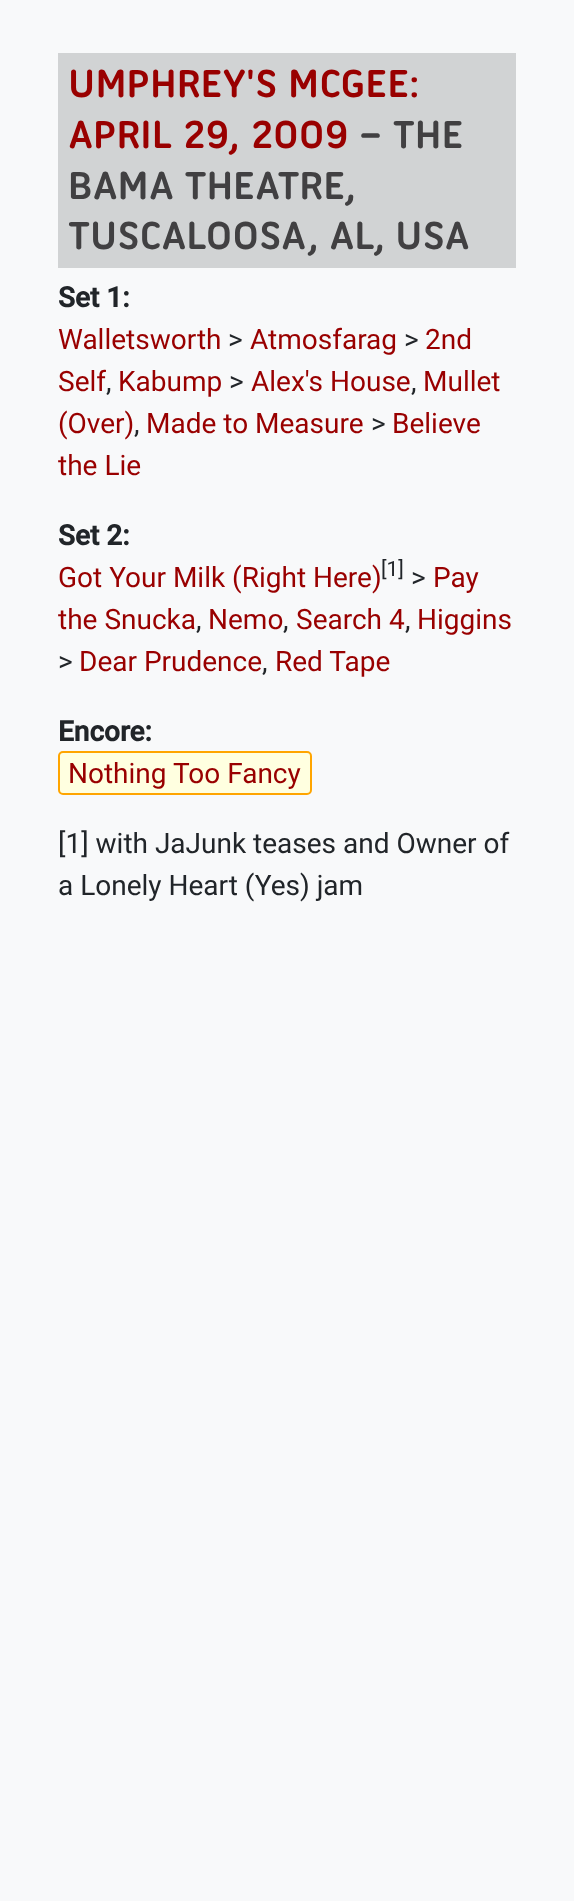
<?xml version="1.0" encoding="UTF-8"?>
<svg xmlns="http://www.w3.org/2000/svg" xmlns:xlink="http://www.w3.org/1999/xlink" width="574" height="1901">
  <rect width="100%" height="100%" fill="#f8f9fa" />
  <rect x="58" y="53" width="458" height="215" fill="#d1d3d4" />
  <rect x="59" y="752" width="252" height="42" rx="4" fill="#ffffe0" stroke="#ffa500" stroke-width="2" />
  <text x="68" y="97" style="font-family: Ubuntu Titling; font-size: 42.25px; font-weight: bold; fill: #990000">UMPHREY'S MCGEE:</text>
  <text x="68" y="148" style="font-family: Ubuntu Titling; font-size: 42.25px; font-weight: bold; fill: #990000">APRIL 29, 2009</text>
  <text x="359" y="148" style="font-family: Ubuntu Titling; font-size: 42.25px; font-weight: bold; fill: #414042">– THE</text>
  <text x="68" y="199" style="font-family: Ubuntu Titling; font-size: 42.25px; font-weight: bold; fill: #414042">BAMA THEATRE,</text>
  <text x="68" y="249" style="font-family: Ubuntu Titling; font-size: 42.25px; font-weight: bold; fill: #414042">TUSCALOOSA, AL, USA</text>
  <text x="58" y="307" style="font-family: Roboto; font-size: 28px; font-weight: bold; fill: #212529">Set 1:</text>
  <text x="58" y="349" style="font-family: Roboto; font-size: 28px; fill: #990000">Walletsworth</text>
  <text x="228" y="349" style="font-family: Roboto; font-size: 28px; fill: #212529">&gt;</text>
  <text x="250" y="349" style="font-family: Roboto; font-size: 28px; fill: #990000">Atmosfarag</text>
  <text x="404" y="349" style="font-family: Roboto; font-size: 28px; fill: #212529">&gt;</text>
  <text x="425" y="349" style="font-family: Roboto; font-size: 28px; fill: #990000">2nd</text>
  <text x="58" y="391" style="font-family: Roboto; font-size: 28px; fill: #990000">Self</text>
  <text x="118" y="391" style="font-family: Roboto; font-size: 28px; fill: #990000">Kabump</text>
  <text x="229" y="391" style="font-family: Roboto; font-size: 28px; fill: #212529">&gt;</text>
  <text x="251" y="391" style="font-family: Roboto; font-size: 28px; fill: #990000">Alex's House</text>
  <text x="423" y="391" style="font-family: Roboto; font-size: 28px; fill: #990000">Mullet</text>
  <text x="106" y="391" style="font-family: Roboto; font-size: 28px; fill: #212529">,</text>
  <text x="411" y="391" style="font-family: Roboto; font-size: 28px; fill: #212529">,</text>
  <text x="58" y="433" style="font-family: Roboto; font-size: 28px; fill: #990000">(Over)</text>
  <text x="146" y="433" style="font-family: Roboto; font-size: 28px; fill: #990000">Made to Measure</text>
  <text x="371" y="433" style="font-family: Roboto; font-size: 28px; fill: #212529">&gt;</text>
  <text x="392" y="433" style="font-family: Roboto; font-size: 28px; fill: #990000">Believe</text>
  <text x="134" y="433" style="font-family: Roboto; font-size: 28px; fill: #212529">,</text>
  <text x="58" y="475" style="font-family: Roboto; font-size: 28px; fill: #990000">the Lie</text>
  <text x="58" y="545" style="font-family: Roboto; font-size: 28px; font-weight: bold; fill: #212529">Set 2:</text>
  <text x="58" y="587" style="font-family: Roboto; font-size: 28px; fill: #990000">Got Your Milk (Right Here)</text>
  <text x="381" y="576" style="font-family: Roboto; font-size: 21px; fill: #212529">[1]</text>
  <text x="411" y="587" style="font-family: Roboto; font-size: 28px; fill: #212529">&gt;</text>
  <text x="433" y="587" style="font-family: Roboto; font-size: 28px; fill: #990000">Pay</text>
  <text x="58" y="629" style="font-family: Roboto; font-size: 28px; fill: #990000">the Snucka</text>
  <text x="196" y="629" style="font-family: Roboto; font-size: 28px; fill: #212529">,</text>
  <text x="208" y="629" style="font-family: Roboto; font-size: 28px; fill: #990000">Nemo</text>
  <text x="283" y="629" style="font-family: Roboto; font-size: 28px; fill: #212529">,</text>
  <text x="296" y="629" style="font-family: Roboto; font-size: 28px; fill: #990000">Search 4</text>
  <text x="405" y="629" style="font-family: Roboto; font-size: 28px; fill: #212529">,</text>
  <text x="417" y="629" style="font-family: Roboto; font-size: 28px; fill: #990000">Higgins</text>
  <text x="58" y="671" style="font-family: Roboto; font-size: 28px; fill: #212529">&gt;</text>
  <text x="79" y="671" style="font-family: Roboto; font-size: 28px; fill: #990000">Dear Prudence</text>
  <text x="275" y="671" style="font-family: Roboto; font-size: 28px; fill: #990000">Red Tape</text>
  <text x="262" y="671" style="font-family: Roboto; font-size: 28px; fill: #212529">,</text>
  <text x="58" y="741" style="font-family: Roboto; font-size: 28px; font-weight: bold; fill: #212529">Encore:</text>
  <text x="68" y="783" style="font-family: Roboto; font-size: 28px; fill: #990000">Nothing Too Fancy</text>
  <text x="58" y="853" style="font-family: Roboto; font-size: 28px; fill: #212529">[1] with JaJunk teases and Owner of</text>
  <text x="58" y="895" style="font-family: Roboto; font-size: 28px; fill: #212529">a Lonely Heart (Yes) jam</text>
</svg>
